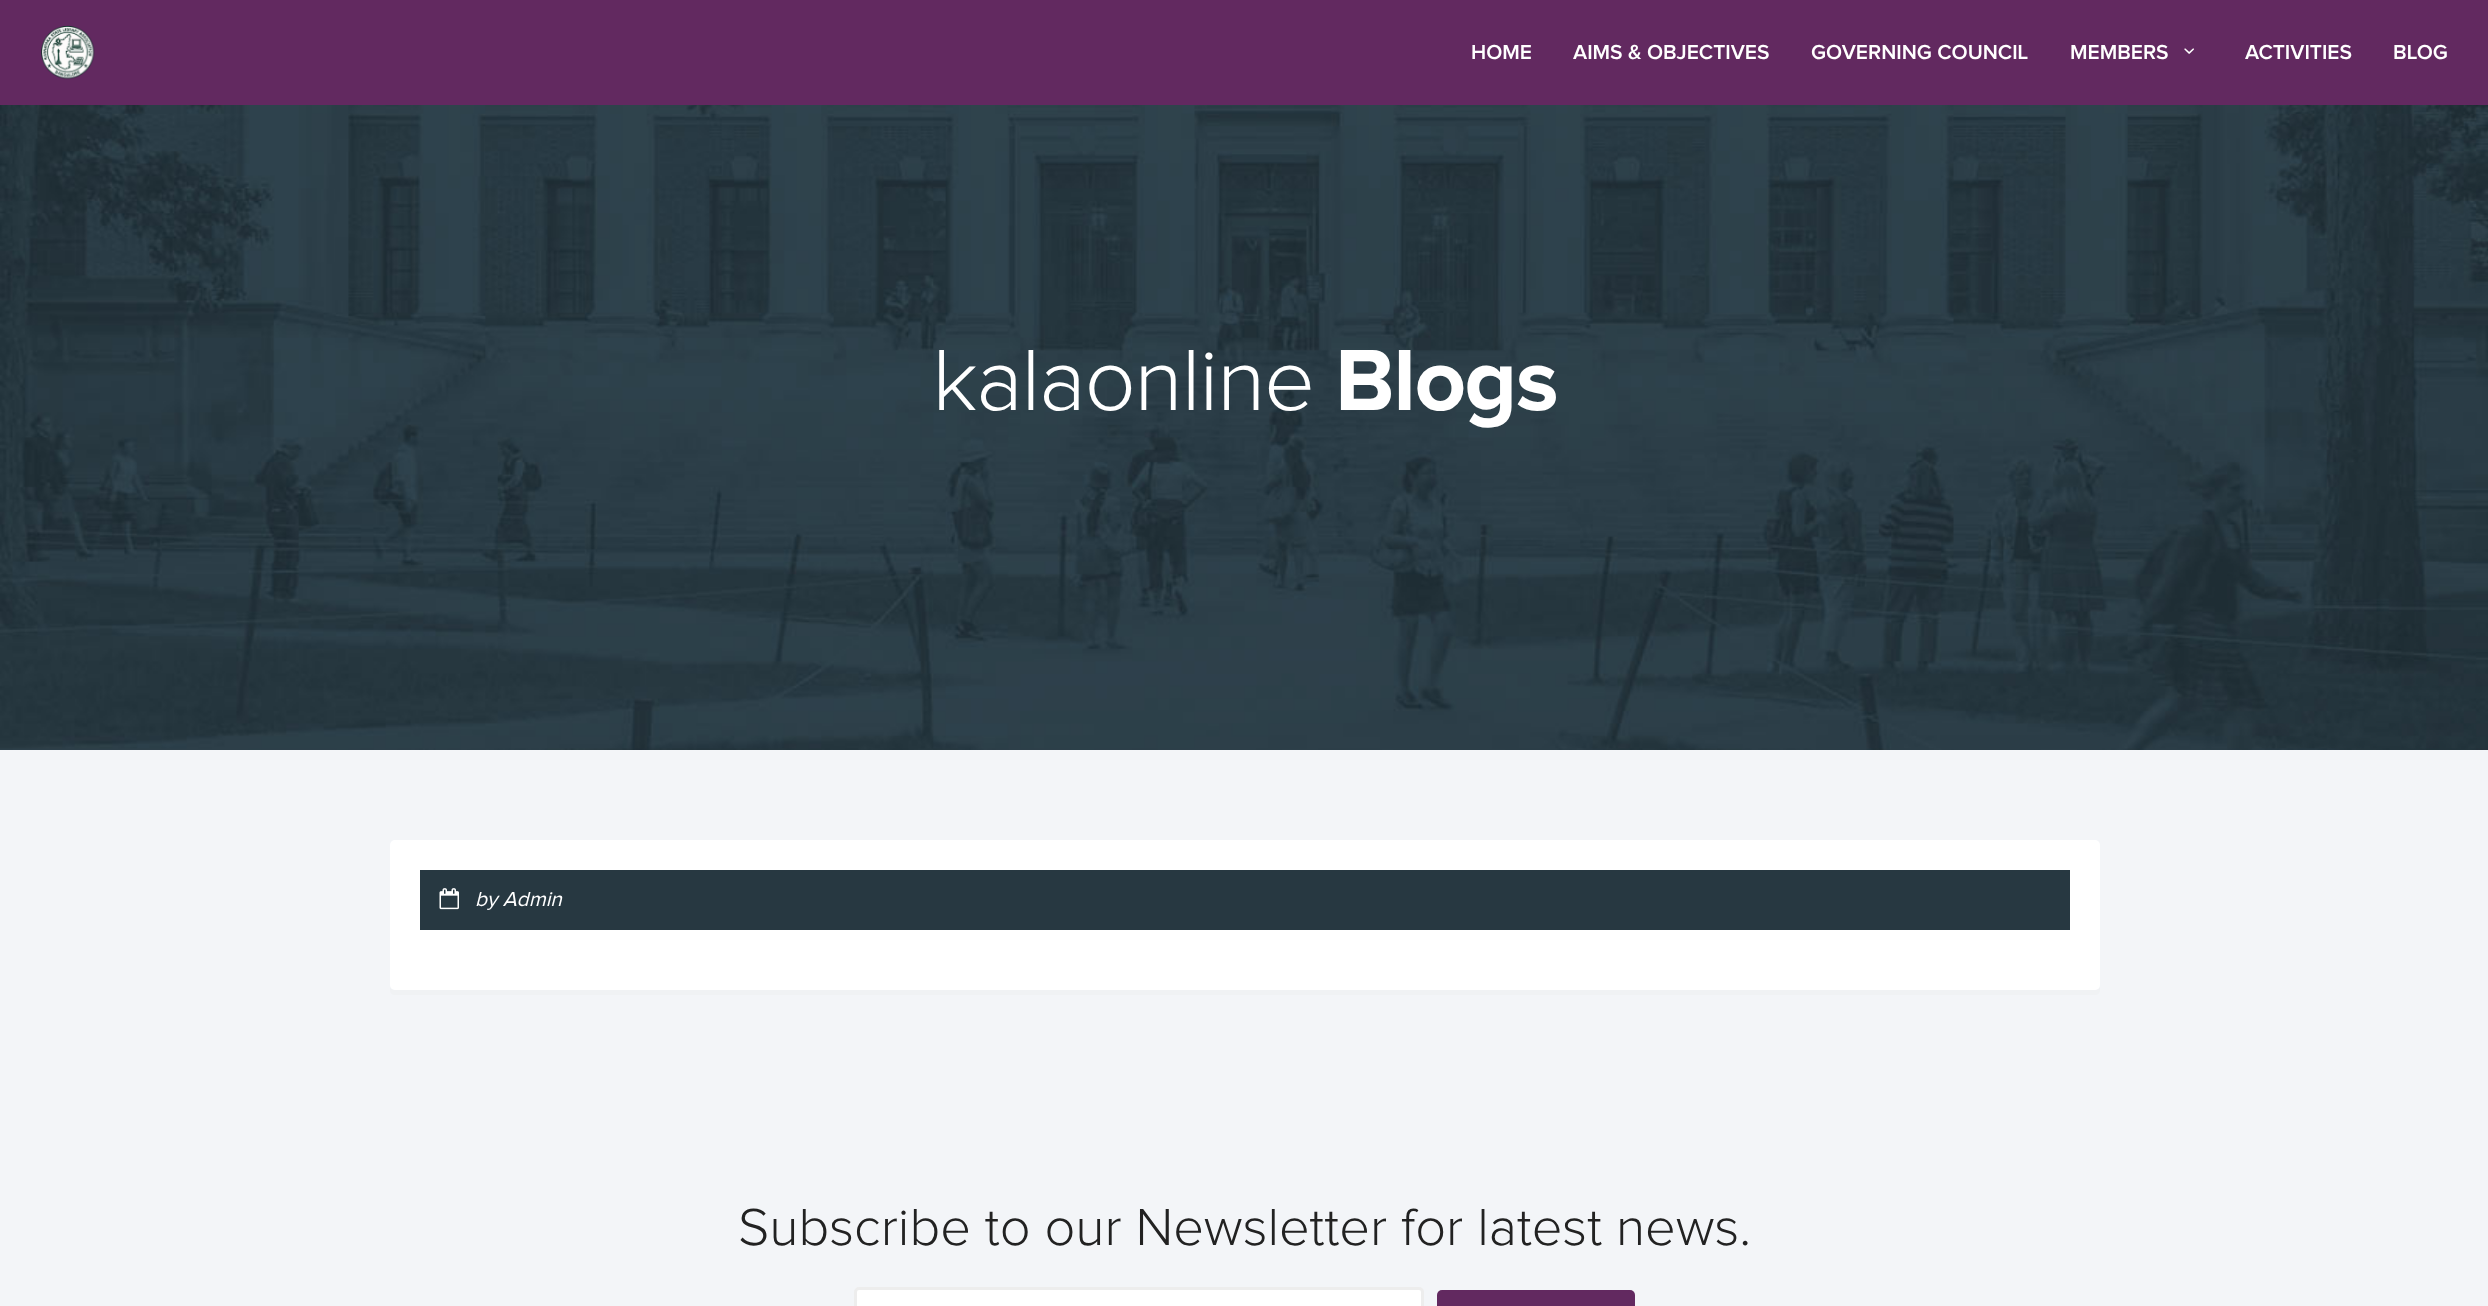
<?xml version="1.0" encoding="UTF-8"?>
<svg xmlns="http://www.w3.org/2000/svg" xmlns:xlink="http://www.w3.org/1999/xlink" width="2488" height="1306">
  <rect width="100%" height="100%" fill="#f3f5f8" />
  <rect width="2488" height="105" fill="#622960" />
  <image x="41" y="25" width="54" height="55" xlink:href="image1.png" />
  <image x="2184" y="48" width="10" height="6" xlink:href="image2.png" />
  <image x="0" y="105" width="2488" height="645" xlink:href="image3.png" />
  <path d="M 390 986 v 4 c 0 3 2 5 5 5 h 1700 c 3 0 5 -2 5 -5 v -4 c 0 2 -2 4 -4 4 h -1702 c -2 0 -4 -2 -4 -4 z" fill="#f0f2f4" />
  <rect x="390" y="840" width="1710" height="150" rx="5" fill="#ffffff" />
  <rect x="420" y="870" width="1650" height="60" fill="#273841" />
  <image x="439" y="888" width="20" height="22" xlink:href="image4.png" />
  <rect x="855.5" y="1288.5" width="567" height="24" rx="3.5" fill="#ffffff" stroke="#ededed" stroke-width="3" />
  <rect x="1437" y="1290" width="198" height="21" rx="5" fill="#622960" />
  <text x="1471" y="59" style="font-family: Proxima Nova; font-size: 21px; font-weight: 600; fill: #ffffff">HOME</text>
  <text x="1573" y="59" style="font-family: Proxima Nova; font-size: 21px; font-weight: 600; fill: #ffffff">AIMS &amp; OBJECTIVES</text>
  <text x="1811" y="59" style="font-family: Proxima Nova; font-size: 21px; font-weight: 600; fill: #ffffff">GOVERNING COUNCIL</text>
  <text x="2070" y="59" style="font-family: Proxima Nova; font-size: 21px; font-weight: 600; fill: #ffffff">MEMBERS</text>
  <text x="2245" y="59" style="font-family: Proxima Nova; font-size: 21px; font-weight: 600; fill: #ffffff">ACTIVITIES</text>
  <text x="2393" y="59" style="font-family: Proxima Nova; font-size: 21px; font-weight: 600; fill: #ffffff">BLOG</text>
  <text x="932" y="410" style="font-family: Proxima Nova; font-size: 90px; font-weight: 300; letter-spacing: -1.5px; fill: #ffffff">kalaonline</text>
  <text x="1335" y="410" style="font-family: Proxima Nova; font-size: 90px; font-weight: bold; letter-spacing: -1.5px; fill: #ffffff">Blogs</text>
  <text x="475" y="906" style="font-family: Proxima Nova; font-size: 21px; font-style: italic; fill: #ffffff">by Admin</text>
  <text x="738" y="1245" style="font-family: Proxima Nova; font-size: 54px; font-weight: 300; fill: #222222">Subscribe to our Newsletter for latest news.</text>
</svg>
